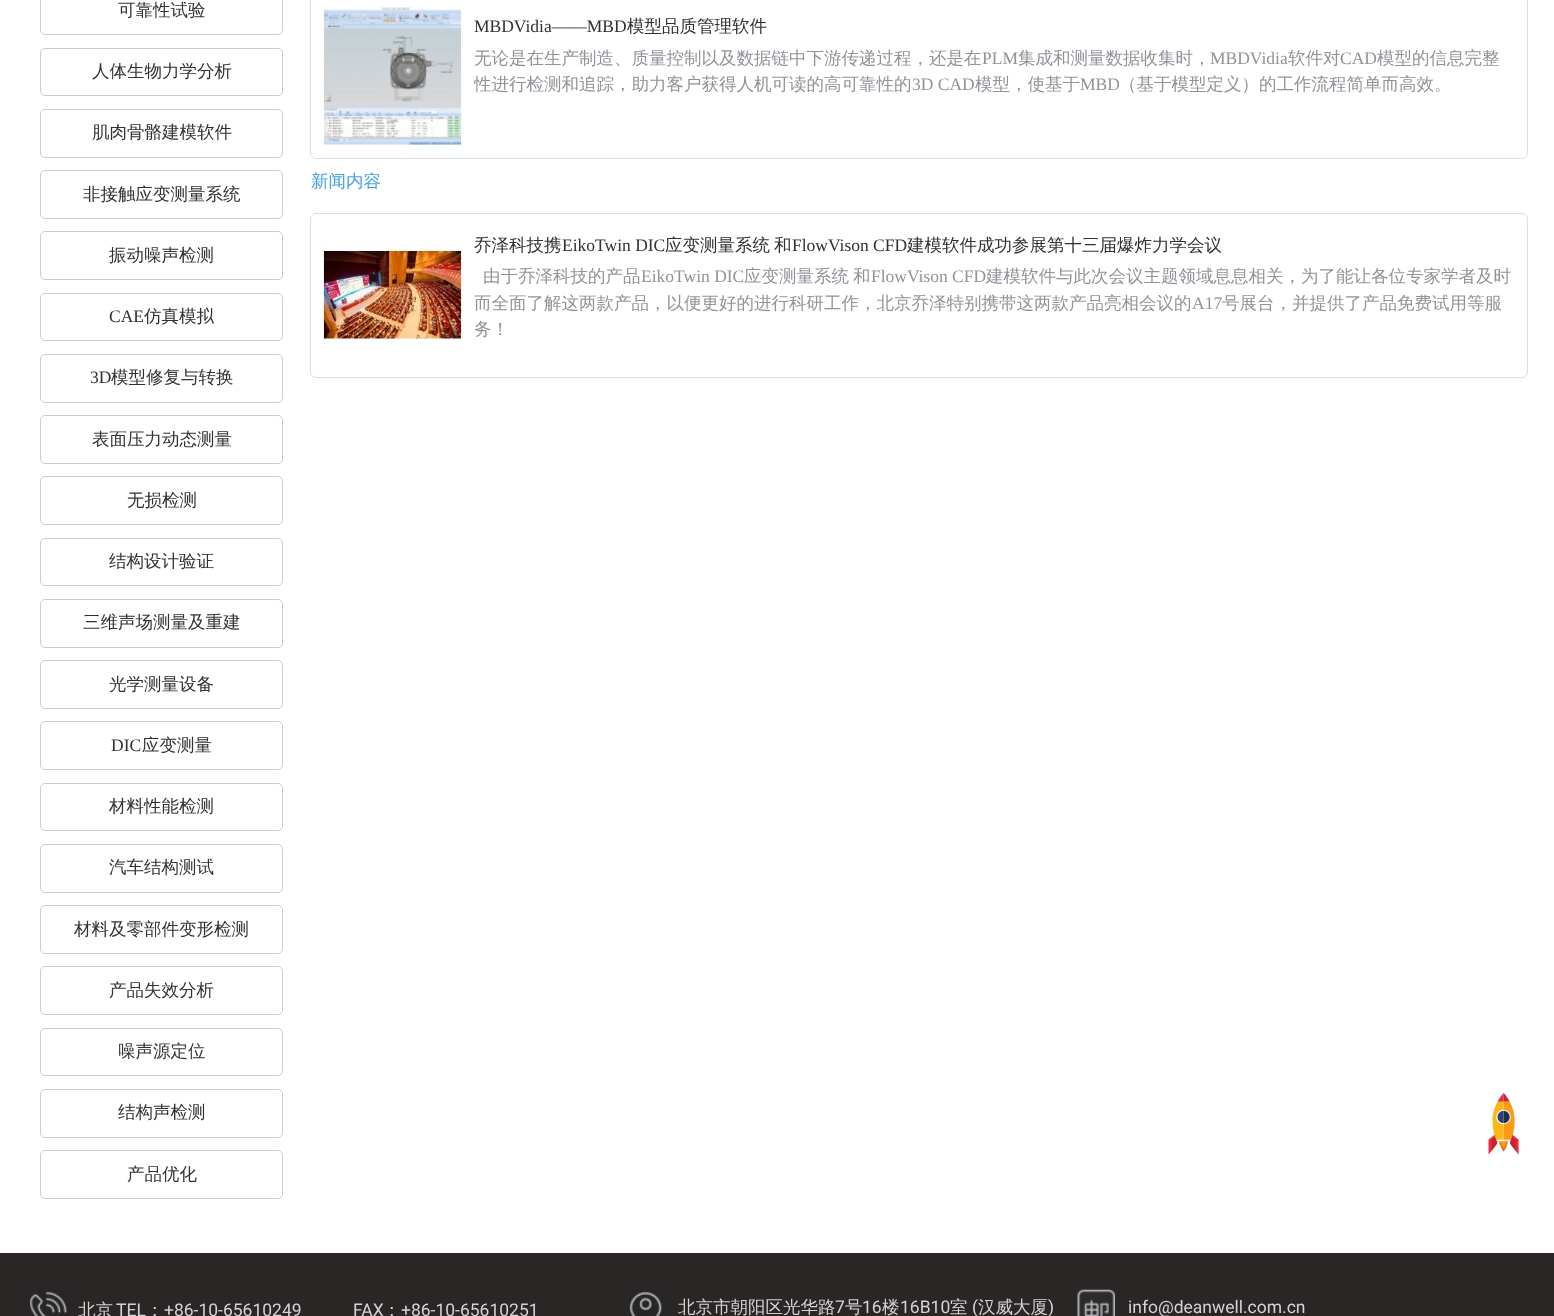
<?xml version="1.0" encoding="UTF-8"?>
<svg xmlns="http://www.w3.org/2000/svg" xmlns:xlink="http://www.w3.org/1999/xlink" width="1554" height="1316">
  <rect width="100%" height="100%" fill="#ffffff" />
  <rect x="40.5" y="-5.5" width="242" height="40" rx="4.5" fill="none" stroke="#cccccc" />
  <rect x="40.5" y="48.5" width="242" height="47" rx="4.5" fill="none" stroke="#cccccc" />
  <rect x="40.5" y="109.5" width="242" height="48" rx="4.5" fill="none" stroke="#cccccc" />
  <rect x="40.5" y="170.5" width="242" height="48" rx="4.5" fill="none" stroke="#cccccc" />
  <rect x="40.5" y="231.5" width="242" height="48" rx="4.5" fill="none" stroke="#cccccc" />
  <rect x="40.5" y="293.5" width="242" height="47" rx="4.5" fill="none" stroke="#cccccc" />
  <rect x="40.5" y="354.5" width="242" height="48" rx="4.5" fill="none" stroke="#cccccc" />
  <rect x="40.5" y="415.5" width="242" height="48" rx="4.5" fill="none" stroke="#cccccc" />
  <rect x="40.5" y="476.5" width="242" height="48" rx="4.5" fill="none" stroke="#cccccc" />
  <rect x="40.5" y="538.5" width="242" height="47" rx="4.5" fill="none" stroke="#cccccc" />
  <rect x="40.5" y="599.5" width="242" height="48" rx="4.5" fill="none" stroke="#cccccc" />
  <rect x="40.5" y="660.5" width="242" height="48" rx="4.5" fill="none" stroke="#cccccc" />
  <rect x="40.5" y="721.5" width="242" height="48" rx="4.5" fill="none" stroke="#cccccc" />
  <rect x="40.5" y="783.5" width="242" height="47" rx="4.5" fill="none" stroke="#cccccc" />
  <rect x="40.5" y="844.5" width="242" height="48" rx="4.5" fill="none" stroke="#cccccc" />
  <rect x="40.5" y="905.5" width="242" height="48" rx="4.5" fill="none" stroke="#cccccc" />
  <rect x="40.5" y="966.5" width="242" height="48" rx="4.5" fill="none" stroke="#cccccc" />
  <rect x="40.5" y="1028.5" width="242" height="47" rx="4.5" fill="none" stroke="#cccccc" />
  <rect x="40.5" y="1089.5" width="242" height="48" rx="4.5" fill="none" stroke="#cccccc" />
  <rect x="40.5" y="1150.5" width="242" height="48" rx="4.5" fill="none" stroke="#cccccc" />
  <rect x="310.5" y="-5.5" width="1217" height="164" rx="5.5" fill="none" stroke="#dcdfe6" />
  <image x="323" y="7" width="139" height="138" xlink:href="image1.png" />
  <rect x="310.5" y="213.5" width="1217" height="164" rx="5.5" fill="none" stroke="#dcdfe6" />
  <image x="323" y="251" width="139" height="88" xlink:href="image2.png" />
  <rect y="1253" width="1554" height="63" fill="#2b2626" />
  <image x="1488" y="1092" width="31" height="63" xlink:href="image3.png" />
  <image x="28" y="1290" width="42" height="26" xlink:href="image4.png" />
  <image x="628" y="1290" width="37" height="26" xlink:href="image5.png" />
  <image x="1077" y="1289" width="38" height="27" xlink:href="image6.png" />
  <text x="118" y="16" style="font-family: WenQuanYi Zen Hei; font-size: 17.5px; font-weight: 500; fill: #303133">可靠性试验</text>
  <text x="92" y="77" style="font-family: WenQuanYi Zen Hei; font-size: 17.5px; font-weight: 500; fill: #303133">人体生物力学分析</text>
  <text x="92" y="138" style="font-family: WenQuanYi Zen Hei; font-size: 17.5px; font-weight: 500; fill: #303133">肌肉骨骼建模软件</text>
  <text x="83" y="200" style="font-family: WenQuanYi Zen Hei; font-size: 17.5px; font-weight: 500; fill: #303133">非接触应变测量系统</text>
  <text x="109" y="261" style="font-family: WenQuanYi Zen Hei; font-size: 17.5px; font-weight: 500; fill: #303133">振动噪声检测</text>
  <text x="109" y="322" style="font-family: Liberation Serif; font-size: 17.5px; fill: #303133">CAE</text>
  <text x="144" y="322" style="font-family: WenQuanYi Zen Hei; font-size: 17.5px; font-weight: 500; fill: #303133">仿真模拟</text>
  <text x="90" y="383" style="font-family: Liberation Serif; font-size: 17.5px; fill: #303133">3D</text>
  <text x="111" y="383" style="font-family: WenQuanYi Zen Hei; font-size: 17.5px; font-weight: 500; fill: #303133">模型修复与转换</text>
  <text x="92" y="445" style="font-family: WenQuanYi Zen Hei; font-size: 17.5px; font-weight: 500; fill: #303133">表面压力动态测量</text>
  <text x="127" y="506" style="font-family: WenQuanYi Zen Hei; font-size: 17.5px; font-weight: 500; fill: #303133">无损检测</text>
  <text x="109" y="567" style="font-family: WenQuanYi Zen Hei; font-size: 17.5px; font-weight: 500; fill: #303133">结构设计验证</text>
  <text x="83" y="628" style="font-family: WenQuanYi Zen Hei; font-size: 17.5px; font-weight: 500; fill: #303133">三维声场测量及重建</text>
  <text x="109" y="690" style="font-family: WenQuanYi Zen Hei; font-size: 17.5px; font-weight: 500; fill: #303133">光学测量设备</text>
  <text x="111" y="751" style="font-family: Liberation Serif; font-size: 17.5px; fill: #303133">DIC</text>
  <text x="142" y="751" style="font-family: WenQuanYi Zen Hei; font-size: 17.5px; font-weight: 500; fill: #303133">应变测量</text>
  <text x="109" y="812" style="font-family: WenQuanYi Zen Hei; font-size: 17.5px; font-weight: 500; fill: #303133">材料性能检测</text>
  <text x="109" y="873" style="font-family: WenQuanYi Zen Hei; font-size: 17.5px; font-weight: 500; fill: #303133">汽车结构测试</text>
  <text x="74" y="935" style="font-family: WenQuanYi Zen Hei; font-size: 17.5px; font-weight: 500; fill: #303133">材料及零部件变形检测</text>
  <text x="109" y="996" style="font-family: WenQuanYi Zen Hei; font-size: 17.5px; font-weight: 500; fill: #303133">产品失效分析</text>
  <text x="118" y="1057" style="font-family: WenQuanYi Zen Hei; font-size: 17.5px; font-weight: 500; fill: #303133">噪声源定位</text>
  <text x="118" y="1118" style="font-family: WenQuanYi Zen Hei; font-size: 17.5px; font-weight: 500; fill: #303133">结构声检测</text>
  <text x="127" y="1180" style="font-family: WenQuanYi Zen Hei; font-size: 17.5px; font-weight: 500; fill: #303133">产品优化</text>
  <text x="474" y="32" style="font-family: Liberation Serif; font-size: 17.5px; fill: #303133">MBDVidia——MBD</text>
  <text x="627" y="32" style="font-family: WenQuanYi Zen Hei; font-size: 17.5px; font-weight: 500; fill: #303133">模型品质管理软件</text>
  <text x="474" y="64" style="font-family: WenQuanYi Zen Hei; font-size: 17.5px; font-weight: 500; fill: #909399">无论是在生产制造、质量控制以及数据链中下游传递过程，还是在</text>
  <text x="982" y="64" style="font-family: Liberation Serif; font-size: 17.5px; fill: #909399">PLM</text>
  <text x="1018" y="64" style="font-family: WenQuanYi Zen Hei; font-size: 17.5px; font-weight: 500; fill: #909399">集成和测量数据收集时，</text>
  <text x="1210" y="64" style="font-family: Liberation Serif; font-size: 17.5px; fill: #909399">MBDVidia</text>
  <text x="1288" y="64" style="font-family: WenQuanYi Zen Hei; font-size: 17.5px; font-weight: 500; fill: #909399">软件对</text>
  <text x="1340" y="64" style="font-family: Liberation Serif; font-size: 17.5px; fill: #909399">CAD</text>
  <text x="1377" y="64" style="font-family: WenQuanYi Zen Hei; font-size: 17.5px; font-weight: 500; fill: #909399">模型的信息完整</text>
  <text x="474" y="90" style="font-family: WenQuanYi Zen Hei; font-size: 17.5px; font-weight: 500; fill: #909399">性进行检测和追踪，助力客户获得人机可读的高可靠性的</text>
  <text x="912" y="90" style="font-family: Liberation Serif; font-size: 17.5px; fill: #909399">3D CAD</text>
  <text x="975" y="90" style="font-family: WenQuanYi Zen Hei; font-size: 17.5px; font-weight: 500; fill: #909399">模型，使基于</text>
  <text x="1080" y="90" style="font-family: Liberation Serif; font-size: 17.5px; fill: #909399">MBD</text>
  <text x="1119" y="90" style="font-family: WenQuanYi Zen Hei; font-size: 17.5px; font-weight: 500; fill: #909399">（基于模型定义）的工作流程简单而高效。</text>
  <text x="311" y="187" style="font-family: WenQuanYi Zen Hei; font-size: 17.5px; font-weight: 500; fill: #409eff">新闻内容</text>
  <text x="474" y="251" style="font-family: WenQuanYi Zen Hei; font-size: 17.5px; font-weight: 500; fill: #303133">乔泽科技携</text>
  <text x="562" y="251" style="font-family: Liberation Serif; font-size: 17.5px; fill: #303133">EikoTwin DIC</text>
  <text x="665" y="251" style="font-family: WenQuanYi Zen Hei; font-size: 17.5px; font-weight: 500; fill: #303133">应变测量系统</text>
  <text x="774" y="251" style="font-family: WenQuanYi Zen Hei; font-size: 17.5px; font-weight: 500; fill: #303133">和</text>
  <text x="792" y="251" style="font-family: Liberation Serif; font-size: 17.5px; fill: #303133">FlowVison CFD</text>
  <text x="907" y="251" style="font-family: WenQuanYi Zen Hei; font-size: 17.5px; font-weight: 500; fill: #303133">建模软件成功参展第十三届爆炸力学会议</text>
  <text x="483" y="282" style="font-family: WenQuanYi Zen Hei; font-size: 17.5px; font-weight: 500; fill: #909399">由于乔泽科技的产品</text>
  <text x="641" y="282" style="font-family: Liberation Serif; font-size: 17.5px; fill: #909399">EikoTwin DIC</text>
  <text x="744" y="282" style="font-family: WenQuanYi Zen Hei; font-size: 17.5px; font-weight: 500; fill: #909399">应变测量系统</text>
  <text x="853" y="282" style="font-family: WenQuanYi Zen Hei; font-size: 17.5px; font-weight: 500; fill: #909399">和</text>
  <text x="871" y="282" style="font-family: Liberation Serif; font-size: 17.5px; fill: #909399">FlowVison CFD</text>
  <text x="986" y="282" style="font-family: WenQuanYi Zen Hei; font-size: 17.5px; font-weight: 500; fill: #909399">建模软件与此次会议主题领域息息相关，为了能让各位专家学者及时</text>
  <text x="474" y="309" style="font-family: WenQuanYi Zen Hei; font-size: 17.5px; font-weight: 500; fill: #909399">而全面了解这两款产品，以便更好的进行科研工作，北京乔泽特别携带这两款产品亮相会议的</text>
  <text x="1192" y="309" style="font-family: Liberation Serif; font-size: 17.5px; fill: #909399">A17</text>
  <text x="1222" y="309" style="font-family: WenQuanYi Zen Hei; font-size: 17.5px; font-weight: 500; fill: #909399">号展台，并提供了产品免费试用等服</text>
  <text x="474" y="335" style="font-family: WenQuanYi Zen Hei; font-size: 17.5px; font-weight: 500; fill: #909399">务！</text>
  <text x="78" y="1316" style="font-family: WenQuanYi Zen Hei; font-size: 17.5px; font-weight: 500; fill: #d3d3d3">北京</text>
  <text x="116" y="1316" style="font-family: Roboto; font-size: 17.5px; fill: #d3d3d3">TEL</text>
  <text x="146" y="1316" style="font-family: WenQuanYi Zen Hei; font-size: 17.5px; font-weight: 500; fill: #d3d3d3">：</text>
  <text x="164" y="1316" style="font-family: Roboto; font-size: 17.5px; fill: #d3d3d3">+86-10-65610249</text>
  <text x="353" y="1316" style="font-family: Roboto; font-size: 17.5px; fill: #d3d3d3">FAX</text>
  <text x="383" y="1316" style="font-family: WenQuanYi Zen Hei; font-size: 17.5px; font-weight: 500; fill: #d3d3d3">：</text>
  <text x="401" y="1316" style="font-family: Roboto; font-size: 17.5px; fill: #d3d3d3">+86-10-65610251</text>
  <text x="678" y="1313" style="font-family: WenQuanYi Zen Hei; font-size: 17.5px; font-weight: 500; fill: #d3d3d3">北京市朝阳区光华路</text>
  <text x="835" y="1313" style="font-family: Roboto; font-size: 17.5px; fill: #d3d3d3">7</text>
  <text x="845" y="1313" style="font-family: WenQuanYi Zen Hei; font-size: 17.5px; font-weight: 500; fill: #d3d3d3">号</text>
  <text x="862" y="1313" style="font-family: Roboto; font-size: 17.5px; fill: #d3d3d3">16</text>
  <text x="882" y="1313" style="font-family: WenQuanYi Zen Hei; font-size: 17.5px; font-weight: 500; fill: #d3d3d3">楼</text>
  <text x="900" y="1313" style="font-family: Roboto; font-size: 17.5px; fill: #d3d3d3">16B10</text>
  <text x="950" y="1313" style="font-family: WenQuanYi Zen Hei; font-size: 17.5px; font-weight: 500; fill: #d3d3d3">室</text>
  <text x="972" y="1313" style="font-family: Roboto; font-size: 17.5px; fill: #d3d3d3">(</text>
  <text x="978" y="1313" style="font-family: WenQuanYi Zen Hei; font-size: 17.5px; font-weight: 500; fill: #d3d3d3">汉威大厦</text>
  <text x="1048" y="1313" style="font-family: Roboto; font-size: 17.5px; fill: #d3d3d3">)</text>
  <text x="1128" y="1313" style="font-family: Roboto; font-size: 17.5px; fill: #d3d3d3">info@deanwell.com.cn</text>
</svg>
